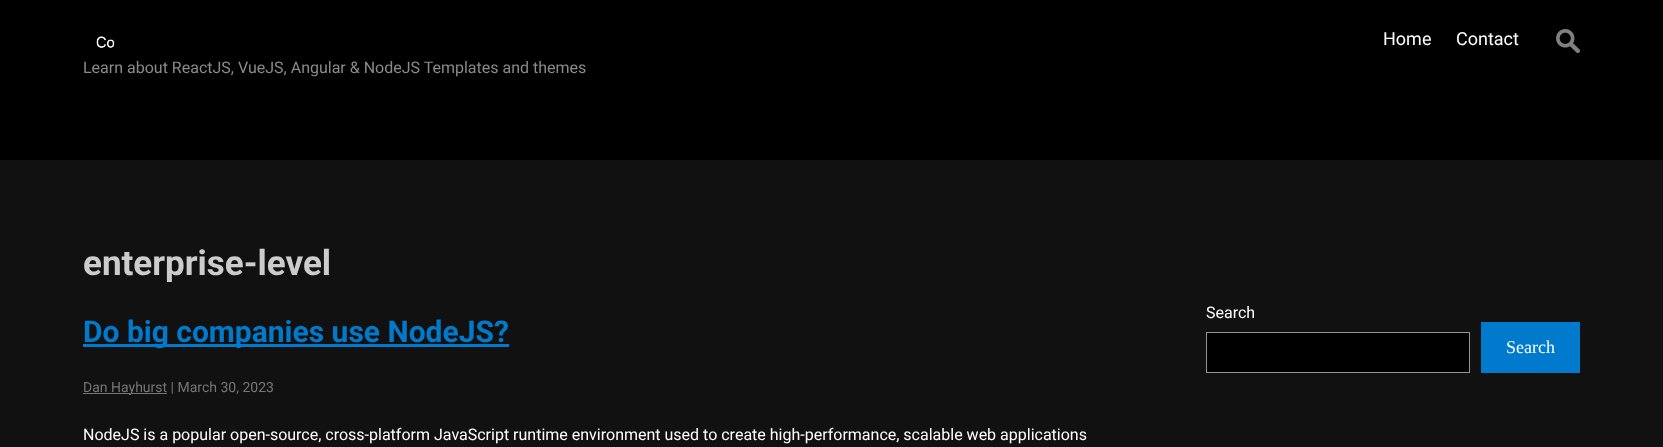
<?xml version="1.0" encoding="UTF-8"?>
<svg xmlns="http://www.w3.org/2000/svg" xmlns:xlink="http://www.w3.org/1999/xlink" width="1663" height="447">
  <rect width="100%" height="100%" fill="#000000" />
  <image x="1556" y="29" width="24" height="24" xlink:href="image1.png" />
  <image x="96" y="36" width="19" height="12" xlink:href="image2.png" />
  <rect y="160" width="1663" height="287" fill="#111111" />
  <rect x="83" y="344" width="426" height="3" fill="#007acc" />
  <rect x="83" y="393" width="84" height="1" fill="#767676" />
  <rect x="1206.5" y="332.5" width="263" height="40" fill="#000000" stroke="#949494" />
  <rect x="1481" y="322" width="99" height="51" fill="#007acc" />
  <text x="1383" y="45" style="font-family: Roboto; font-size: 18px; fill: #ffffff">Home</text>
  <text x="1456" y="45" style="font-family: Roboto; font-size: 18px; fill: #ffffff">Contact</text>
  <text x="83" y="73" style="font-family: Roboto; font-size: 16px; fill: #8a8a8a">Learn about ReactJS, VueJS, Angular &amp; NodeJS Templates and themes</text>
  <text x="83" y="275" style="font-family: Roboto; font-size: 35px; font-weight: bold; fill: #cccccc">enterprise-level</text>
  <text x="83" y="342" style="font-family: Roboto; font-size: 30px; font-weight: bold; fill: #007acc">Do big companies use NodeJS?</text>
  <text x="83" y="392" style="font-family: Roboto; font-size: 14px; fill: #767676">Dan Hayhurst | March 30, 2023</text>
  <text x="83" y="440" style="font-family: Roboto; font-size: 16px; fill: #ffffff">NodeJS is a popular open-source, cross-platform JavaScript runtime environment used to create high-performance, scalable web applications</text>
  <text x="1206" y="318" style="font-family: Roboto; font-size: 16px; fill: #ffffff">Search</text>
  <text x="1506" y="353" style="font-family: Liberation Serif; font-size: 18px; fill: #ffffff">Search</text>
</svg>
